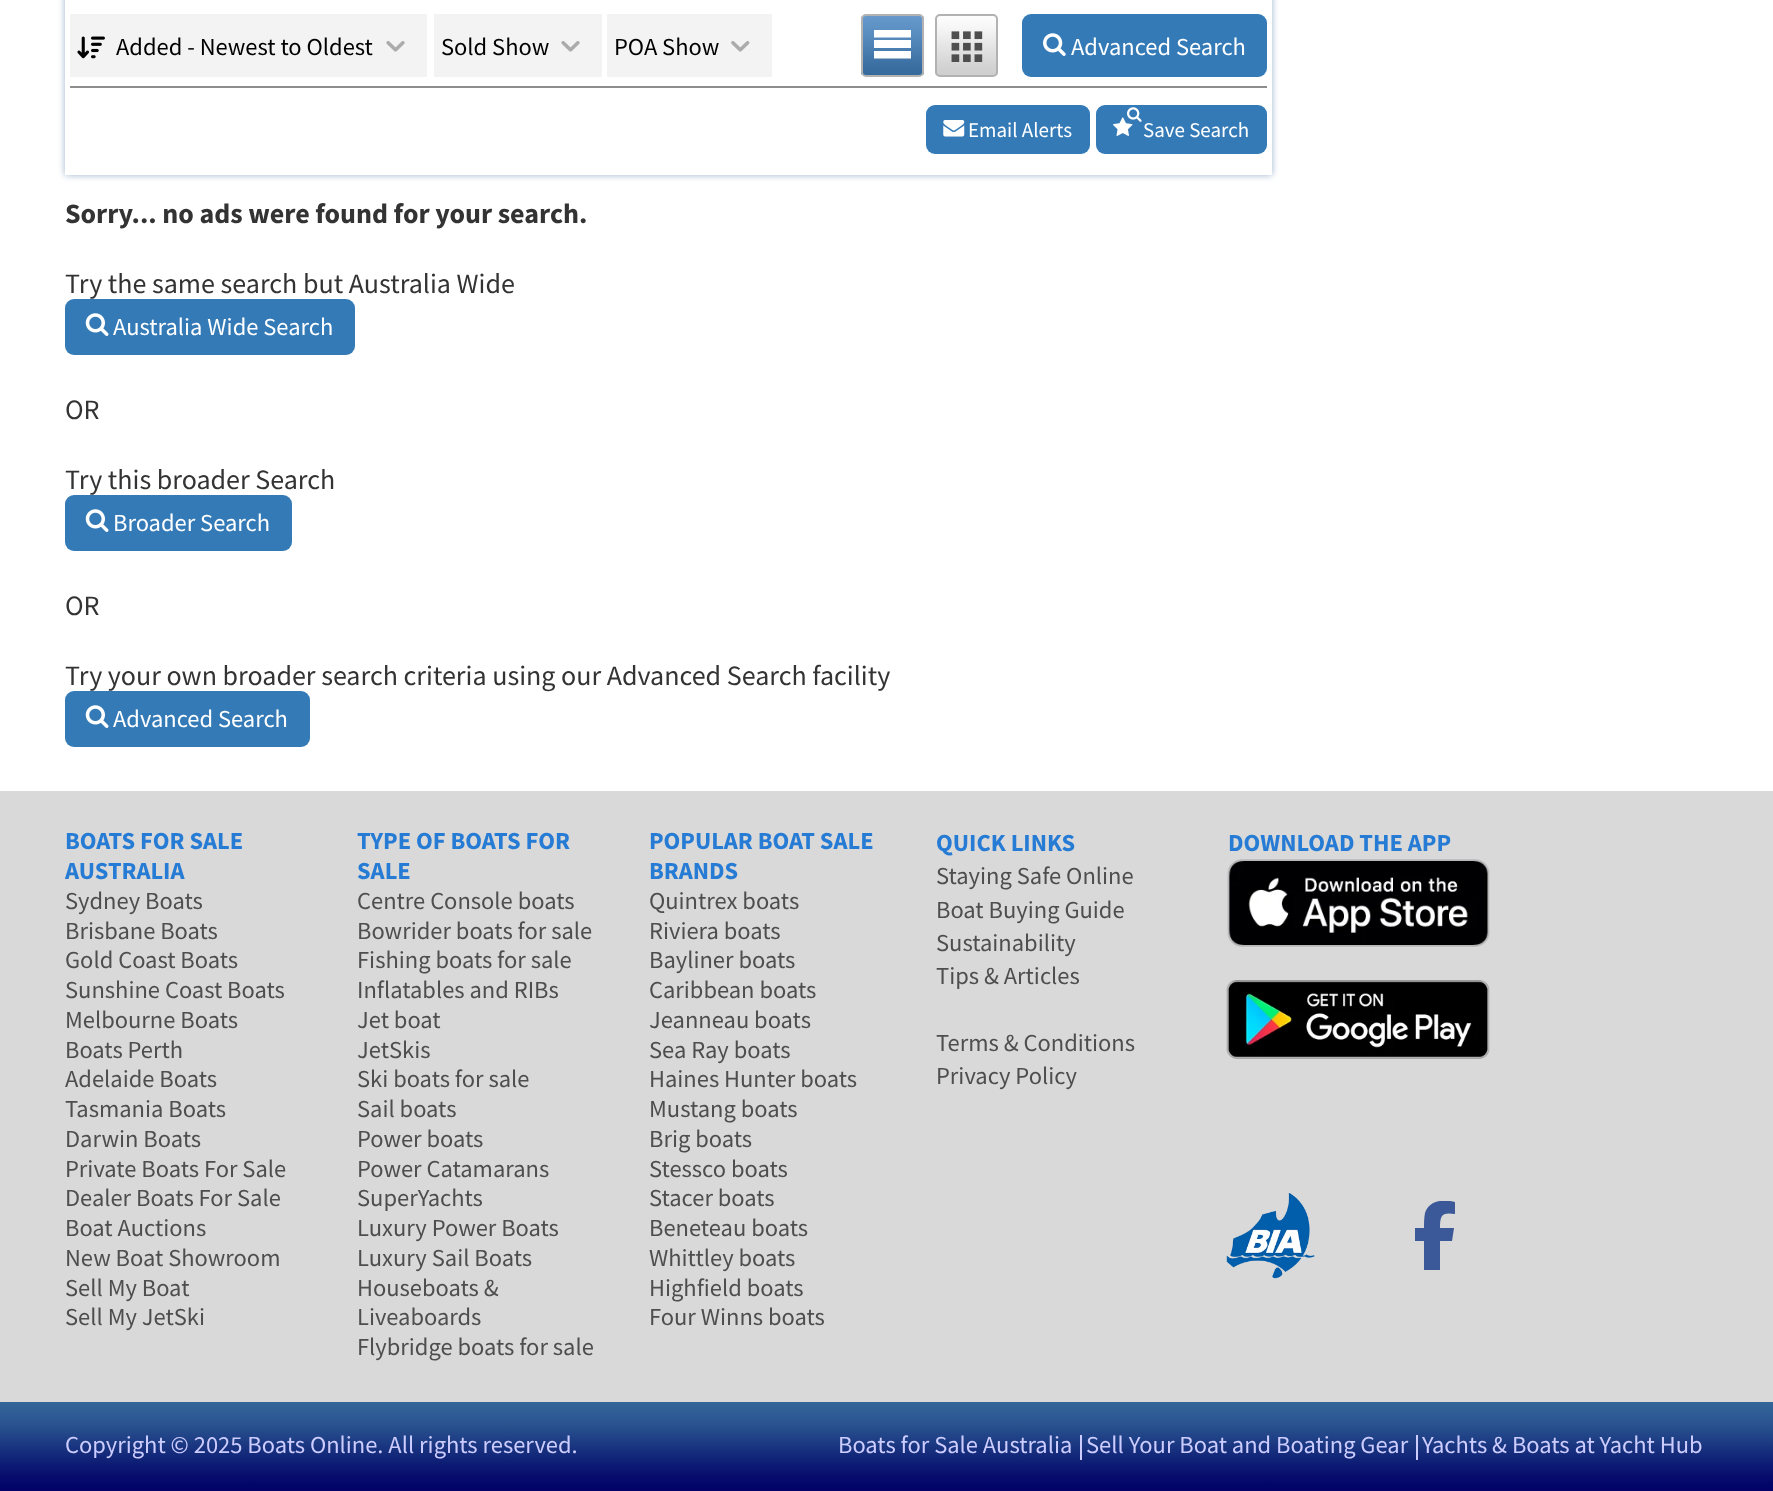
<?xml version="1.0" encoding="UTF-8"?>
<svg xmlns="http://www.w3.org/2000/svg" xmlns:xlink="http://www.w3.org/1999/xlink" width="1773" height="1491">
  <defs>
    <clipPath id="clip1"><path d="M 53 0 h 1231 v 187 h -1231 z m 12 -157 h 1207 v 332 h -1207 z" clip-rule="evenodd" /></clipPath>
    <clipPath id="clip2"><rect x="861" y="14" width="63" height="63" rx="5" /></clipPath>
    <linearGradient id="g1" gradientUnits="userSpaceOnUse" x1="893" y1="16" x2="893" y2="75"><stop offset="0" stop-color="#6a9aca" /><stop offset="0.03" stop-color="#6597ca" /><stop offset="0.29" stop-color="#5a8ec0" /><stop offset="0.84" stop-color="#3b6fa1" /><stop offset="1" stop-color="#366a9c" /></linearGradient>
    <clipPath id="clip3"><rect x="935" y="14" width="63" height="63" rx="5" /></clipPath>
    <linearGradient id="g2" gradientUnits="userSpaceOnUse" x1="966" y1="16" x2="966" y2="75"><stop offset="0" stop-color="#fdfdfd" /><stop offset="0.2" stop-color="#f6f6f6" /><stop offset="0.83" stop-color="#d4d4d4" /><stop offset="1" stop-color="#cecece" /></linearGradient>
    <clipPath id="clip4"><rect x="1400" y="1201" width="70" height="70" /></clipPath>
    <linearGradient id="g3" gradientUnits="userSpaceOnUse" x1="887" y1="1402" x2="887" y2="1491"><stop offset="0" stop-color="#336799" /><stop offset="0.21" stop-color="#2c5692" /><stop offset="0.29" stop-color="#274f8d" /><stop offset="0.69" stop-color="#0d1d74" /><stop offset="0.81" stop-color="#090f6d" /><stop offset="0.92" stop-color="#020669" /><stop offset="1" stop-color="#020167" /></linearGradient>
  </defs>
  <rect width="100%" height="100%" fill="#ffffff" />
  <g clip-path="url(#clip1)">
    <rect x="65" y="-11" width="1207" height="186" fill="#336699" fill-opacity="0.5" filter="blur(3.5px)" />
  </g>
  <rect x="70" y="14" width="357" height="63" fill="#f3f3f3" />
  <image x="77" y="36" width="28" height="23" xlink:href="image1.png" />
  <image x="386" y="41" width="19" height="11" xlink:href="image2.png" />
  <rect x="434" y="14" width="168" height="63" fill="#f3f3f3" />
  <image x="561" y="41" width="19" height="11" xlink:href="image2.png" />
  <rect x="607" y="14" width="165" height="63" fill="#f3f3f3" />
  <image x="731" y="41" width="19" height="11" xlink:href="image3.png" />
  <g clip-path="url(#clip2)">
    <rect x="861" y="16" width="63" height="59" fill="url(#g1)" />
  </g>
  <rect x="862" y="15" width="61" height="61" rx="4" fill="none" stroke="#b2b2b2" stroke-width="2" />
  <path d="M 874 30 h 37 v 7.5 h -37 z m 0 10 h 37 v 8 h -37 z m 0 11 h 37 v 7.5 h -37 z" fill="#ffffff" />
  <g clip-path="url(#clip3)">
    <rect x="935" y="16" width="63" height="59" fill="url(#g2)" />
  </g>
  <rect x="936" y="15" width="61" height="61" rx="4" fill="none" stroke="#b2b2b2" stroke-width="2" />
  <image x="951" y="31" width="32" height="31" xlink:href="image4.png" />
  <rect x="1022" y="14" width="245" height="63" rx="9" fill="#337ab7" />
  <image x="1043" y="33" width="23" height="23" xlink:href="image5.png" />
  <rect x="70" y="86" width="1197" height="2" fill="#8d8d8d" />
  <rect x="926" y="105" width="164" height="49" rx="9" fill="#337ab7" />
  <image x="943" y="120" width="22" height="17" xlink:href="image6.png" />
  <rect x="1096" y="105" width="171" height="49" rx="9" fill="#337ab7" />
  <image x="1113" y="117" width="20" height="19" xlink:href="image8.png" />
  <image x="1127" y="107" width="15" height="15" xlink:href="image7.png" />
  <rect x="65" y="299" width="290" height="56" rx="9" fill="#337ab7" />
  <image x="85" y="313" width="24" height="23" xlink:href="image9.png" />
  <rect x="65" y="495" width="227" height="56" rx="9" fill="#337ab7" />
  <image x="85" y="509" width="24" height="23" xlink:href="image9.png" />
  <rect y="791" width="1773" height="611" fill="#d9d9d9" />
  <image x="1227" y="859" width="263" height="88" xlink:href="image10.png" />
  <image x="1226" y="980" width="264" height="79" xlink:href="image11.png" />
  <image x="1226" y="1193" width="89" height="86" xlink:href="image12.png" />
  <g clip-path="url(#clip4)">
    <path d="M 1424 1241 v 29 h 16 v -29 h 12 l 2 -13 h -14 c 0 -13 2 -16 15 -14 v -12 c -11 -3 -26 -2 -30 11 c -1 5 -1 10 -1 15 h -9 v 13 z" fill="#3b5998" />
  </g>
  <rect y="1402" width="1773" height="89" fill="url(#g3)" />
  <rect x="1080" y="1435" width="2" height="25" fill="#ccccff" />
  <rect x="1416" y="1435" width="2" height="25" fill="#ccccff" />
  <text x="116" y="55" style="font-family: Source Sans Pro; font-size: 24.5px; fill: #000000">Added - Newest to Oldest</text>
  <text x="441" y="55" style="font-family: Source Sans Pro; font-size: 24.5px; fill: #000000">Sold Show</text>
  <text x="614" y="55" style="font-family: Source Sans Pro; font-size: 24.5px; fill: #000000">POA Show</text>
  <text x="1071" y="55" style="font-family: Source Sans Pro; font-size: 24.5px; fill: #ffffff">Advanced Search</text>
  <text x="968" y="137" style="font-family: Source Sans Pro; font-size: 21px; fill: #ffffff">Email Alerts</text>
  <text x="1143" y="137" style="font-family: Source Sans Pro; font-size: 21px; fill: #ffffff">Save Search</text>
  <text x="65" y="223" style="font-family: Source Sans Pro; font-size: 28px; font-weight: bold; fill: #333333">Sorry... no ads were found for your search.</text>
  <text x="65" y="293" style="font-family: Source Sans Pro; font-size: 28px; fill: #333333">Try the same search but Australia Wide</text>
  <text x="113" y="335" style="font-family: Source Sans Pro; font-size: 24.5px; fill: #ffffff">Australia Wide Search</text>
  <text x="65" y="419" style="font-family: Source Sans Pro; font-size: 28px; fill: #333333">OR</text>
  <text x="65" y="489" style="font-family: Source Sans Pro; font-size: 28px; fill: #333333">Try this broader Search</text>
  <text x="113" y="531" style="font-family: Source Sans Pro; font-size: 24.5px; fill: #ffffff">Broader Search</text>
  <text x="65" y="615" style="font-family: Source Sans Pro; font-size: 28px; fill: #333333">OR</text>
  <text x="65" y="685" style="font-family: Source Sans Pro; font-size: 28px; fill: #333333">Try your own broader search criteria using our Advanced Search facility</text>
  <rect x="65" y="691" width="245" height="56" rx="9" fill="#337ab7" />
  <image x="85" y="705" width="24" height="23" xlink:href="image9.png" />
  <text x="113" y="727" style="font-family: Source Sans Pro; font-size: 24.5px; fill: #ffffff">Advanced Search</text>
  <text x="65" y="849" style="font-family: Source Sans Pro; font-size: 24.5px; font-weight: bold; fill: #267bd5">BOATS FOR SALE</text>
  <text x="65" y="879" style="font-family: Source Sans Pro; font-size: 24.5px; font-weight: bold; fill: #267bd5">AUSTRALIA</text>
  <text x="65" y="909" style="font-family: Source Sans Pro; font-size: 24.5px; fill: #4e4e4e">Sydney Boats</text>
  <text x="65" y="939" style="font-family: Source Sans Pro; font-size: 24.5px; fill: #4e4e4e">Brisbane Boats</text>
  <text x="65" y="968" style="font-family: Source Sans Pro; font-size: 24.5px; fill: #4e4e4e">Gold Coast Boats</text>
  <text x="65" y="998" style="font-family: Source Sans Pro; font-size: 24.5px; fill: #4e4e4e">Sunshine Coast Boats</text>
  <text x="65" y="1028" style="font-family: Source Sans Pro; font-size: 24.5px; fill: #4e4e4e">Melbourne Boats</text>
  <text x="65" y="1058" style="font-family: Source Sans Pro; font-size: 24.5px; fill: #4e4e4e">Boats Perth</text>
  <text x="65" y="1087" style="font-family: Source Sans Pro; font-size: 24.5px; fill: #4e4e4e">Adelaide Boats</text>
  <text x="65" y="1117" style="font-family: Source Sans Pro; font-size: 24.5px; fill: #4e4e4e">Tasmania Boats</text>
  <text x="65" y="1147" style="font-family: Source Sans Pro; font-size: 24.5px; fill: #4e4e4e">Darwin Boats</text>
  <text x="65" y="1177" style="font-family: Source Sans Pro; font-size: 24.5px; fill: #4e4e4e">Private Boats For Sale</text>
  <text x="65" y="1206" style="font-family: Source Sans Pro; font-size: 24.5px; fill: #4e4e4e">Dealer Boats For Sale</text>
  <text x="65" y="1236" style="font-family: Source Sans Pro; font-size: 24.5px; fill: #4e4e4e">Boat Auctions</text>
  <text x="65" y="1266" style="font-family: Source Sans Pro; font-size: 24.5px; fill: #4e4e4e">New Boat Showroom</text>
  <text x="65" y="1296" style="font-family: Source Sans Pro; font-size: 24.5px; fill: #4e4e4e">Sell My Boat</text>
  <text x="65" y="1325" style="font-family: Source Sans Pro; font-size: 24.5px; fill: #4e4e4e">Sell My JetSki</text>
  <text x="357" y="849" style="font-family: Source Sans Pro; font-size: 24.5px; font-weight: bold; fill: #267bd5">TYPE OF BOATS FOR</text>
  <text x="357" y="879" style="font-family: Source Sans Pro; font-size: 24.5px; font-weight: bold; fill: #267bd5">SALE</text>
  <text x="357" y="909" style="font-family: Source Sans Pro; font-size: 24.5px; fill: #4e4e4e">Centre Console boats</text>
  <text x="357" y="939" style="font-family: Source Sans Pro; font-size: 24.5px; fill: #4e4e4e">Bowrider boats for sale</text>
  <text x="357" y="968" style="font-family: Source Sans Pro; font-size: 24.5px; fill: #4e4e4e">Fishing boats for sale</text>
  <text x="357" y="998" style="font-family: Source Sans Pro; font-size: 24.5px; fill: #4e4e4e">Inflatables and RIBs</text>
  <text x="357" y="1028" style="font-family: Source Sans Pro; font-size: 24.5px; fill: #4e4e4e">Jet boat</text>
  <text x="357" y="1058" style="font-family: Source Sans Pro; font-size: 24.5px; fill: #4e4e4e">JetSkis</text>
  <text x="357" y="1087" style="font-family: Source Sans Pro; font-size: 24.5px; fill: #4e4e4e">Ski boats for sale</text>
  <text x="357" y="1117" style="font-family: Source Sans Pro; font-size: 24.5px; fill: #4e4e4e">Sail boats</text>
  <text x="357" y="1147" style="font-family: Source Sans Pro; font-size: 24.5px; fill: #4e4e4e">Power boats</text>
  <text x="357" y="1177" style="font-family: Source Sans Pro; font-size: 24.5px; fill: #4e4e4e">Power Catamarans</text>
  <text x="357" y="1206" style="font-family: Source Sans Pro; font-size: 24.5px; fill: #4e4e4e">SuperYachts</text>
  <text x="357" y="1236" style="font-family: Source Sans Pro; font-size: 24.5px; fill: #4e4e4e">Luxury Power Boats</text>
  <text x="357" y="1266" style="font-family: Source Sans Pro; font-size: 24.5px; fill: #4e4e4e">Luxury Sail Boats</text>
  <text x="357" y="1296" style="font-family: Source Sans Pro; font-size: 24.5px; fill: #4e4e4e">Houseboats &amp;</text>
  <text x="357" y="1325" style="font-family: Source Sans Pro; font-size: 24.5px; fill: #4e4e4e">Liveaboards</text>
  <text x="357" y="1355" style="font-family: Source Sans Pro; font-size: 24.5px; fill: #4e4e4e">Flybridge boats for sale</text>
  <text x="649" y="849" style="font-family: Source Sans Pro; font-size: 24.5px; font-weight: bold; fill: #267bd5">POPULAR BOAT SALE</text>
  <text x="649" y="879" style="font-family: Source Sans Pro; font-size: 24.5px; font-weight: bold; fill: #267bd5">BRANDS</text>
  <text x="649" y="909" style="font-family: Source Sans Pro; font-size: 24.5px; fill: #4e4e4e">Quintrex boats</text>
  <text x="649" y="939" style="font-family: Source Sans Pro; font-size: 24.5px; fill: #4e4e4e">Riviera boats</text>
  <text x="649" y="968" style="font-family: Source Sans Pro; font-size: 24.5px; fill: #4e4e4e">Bayliner boats</text>
  <text x="649" y="998" style="font-family: Source Sans Pro; font-size: 24.5px; fill: #4e4e4e">Caribbean boats</text>
  <text x="649" y="1028" style="font-family: Source Sans Pro; font-size: 24.5px; fill: #4e4e4e">Jeanneau boats</text>
  <text x="649" y="1058" style="font-family: Source Sans Pro; font-size: 24.5px; fill: #4e4e4e">Sea Ray boats</text>
  <text x="649" y="1087" style="font-family: Source Sans Pro; font-size: 24.5px; fill: #4e4e4e">Haines Hunter boats</text>
  <text x="649" y="1117" style="font-family: Source Sans Pro; font-size: 24.5px; fill: #4e4e4e">Mustang boats</text>
  <text x="649" y="1147" style="font-family: Source Sans Pro; font-size: 24.5px; fill: #4e4e4e">Brig boats</text>
  <text x="649" y="1177" style="font-family: Source Sans Pro; font-size: 24.5px; fill: #4e4e4e">Stessco boats</text>
  <text x="649" y="1206" style="font-family: Source Sans Pro; font-size: 24.5px; fill: #4e4e4e">Stacer boats</text>
  <text x="649" y="1236" style="font-family: Source Sans Pro; font-size: 24.5px; fill: #4e4e4e">Beneteau boats</text>
  <text x="649" y="1266" style="font-family: Source Sans Pro; font-size: 24.5px; fill: #4e4e4e">Whittley boats</text>
  <text x="649" y="1296" style="font-family: Source Sans Pro; font-size: 24.5px; fill: #4e4e4e">Highfield boats</text>
  <text x="649" y="1325" style="font-family: Source Sans Pro; font-size: 24.5px; fill: #4e4e4e">Four Winns boats</text>
  <text x="936" y="851" style="font-family: Source Sans Pro; font-size: 24.5px; font-weight: bold; fill: #267bd5">QUICK LINKS</text>
  <text x="936" y="884" style="font-family: Source Sans Pro; font-size: 24.5px; fill: #4e4e4e">Staying Safe Online</text>
  <text x="936" y="918" style="font-family: Source Sans Pro; font-size: 24.5px; fill: #4e4e4e">Boat Buying Guide</text>
  <text x="936" y="951" style="font-family: Source Sans Pro; font-size: 24.5px; fill: #4e4e4e">Sustainability</text>
  <text x="936" y="984" style="font-family: Source Sans Pro; font-size: 24.5px; fill: #4e4e4e">Tips &amp; Articles</text>
  <text x="936" y="1051" style="font-family: Source Sans Pro; font-size: 24.5px; fill: #4e4e4e">Terms &amp; Conditions</text>
  <text x="936" y="1084" style="font-family: Source Sans Pro; font-size: 24.5px; fill: #4e4e4e">Privacy Policy</text>
  <text x="1228" y="851" style="font-family: Source Sans Pro; font-size: 24.5px; font-weight: bold; fill: #267bd5">DOWNLOAD THE APP</text>
  <text x="65" y="1453" style="font-family: Source Sans Pro; font-size: 24.5px; fill: #ccccff">Copyright © 2025 Boats Online. All rights reserved.</text>
  <text x="838" y="1453" style="font-family: Source Sans Pro; font-size: 24.5px; fill: #ccccff">Boats for Sale Australia</text>
  <text x="1086" y="1453" style="font-family: Source Sans Pro; font-size: 24.5px; fill: #ccccff">Sell Your Boat and Boating Gear</text>
  <text x="1422" y="1453" style="font-family: Source Sans Pro; font-size: 24.5px; fill: #ccccff">Yachts &amp; Boats at Yacht Hub</text>
</svg>
